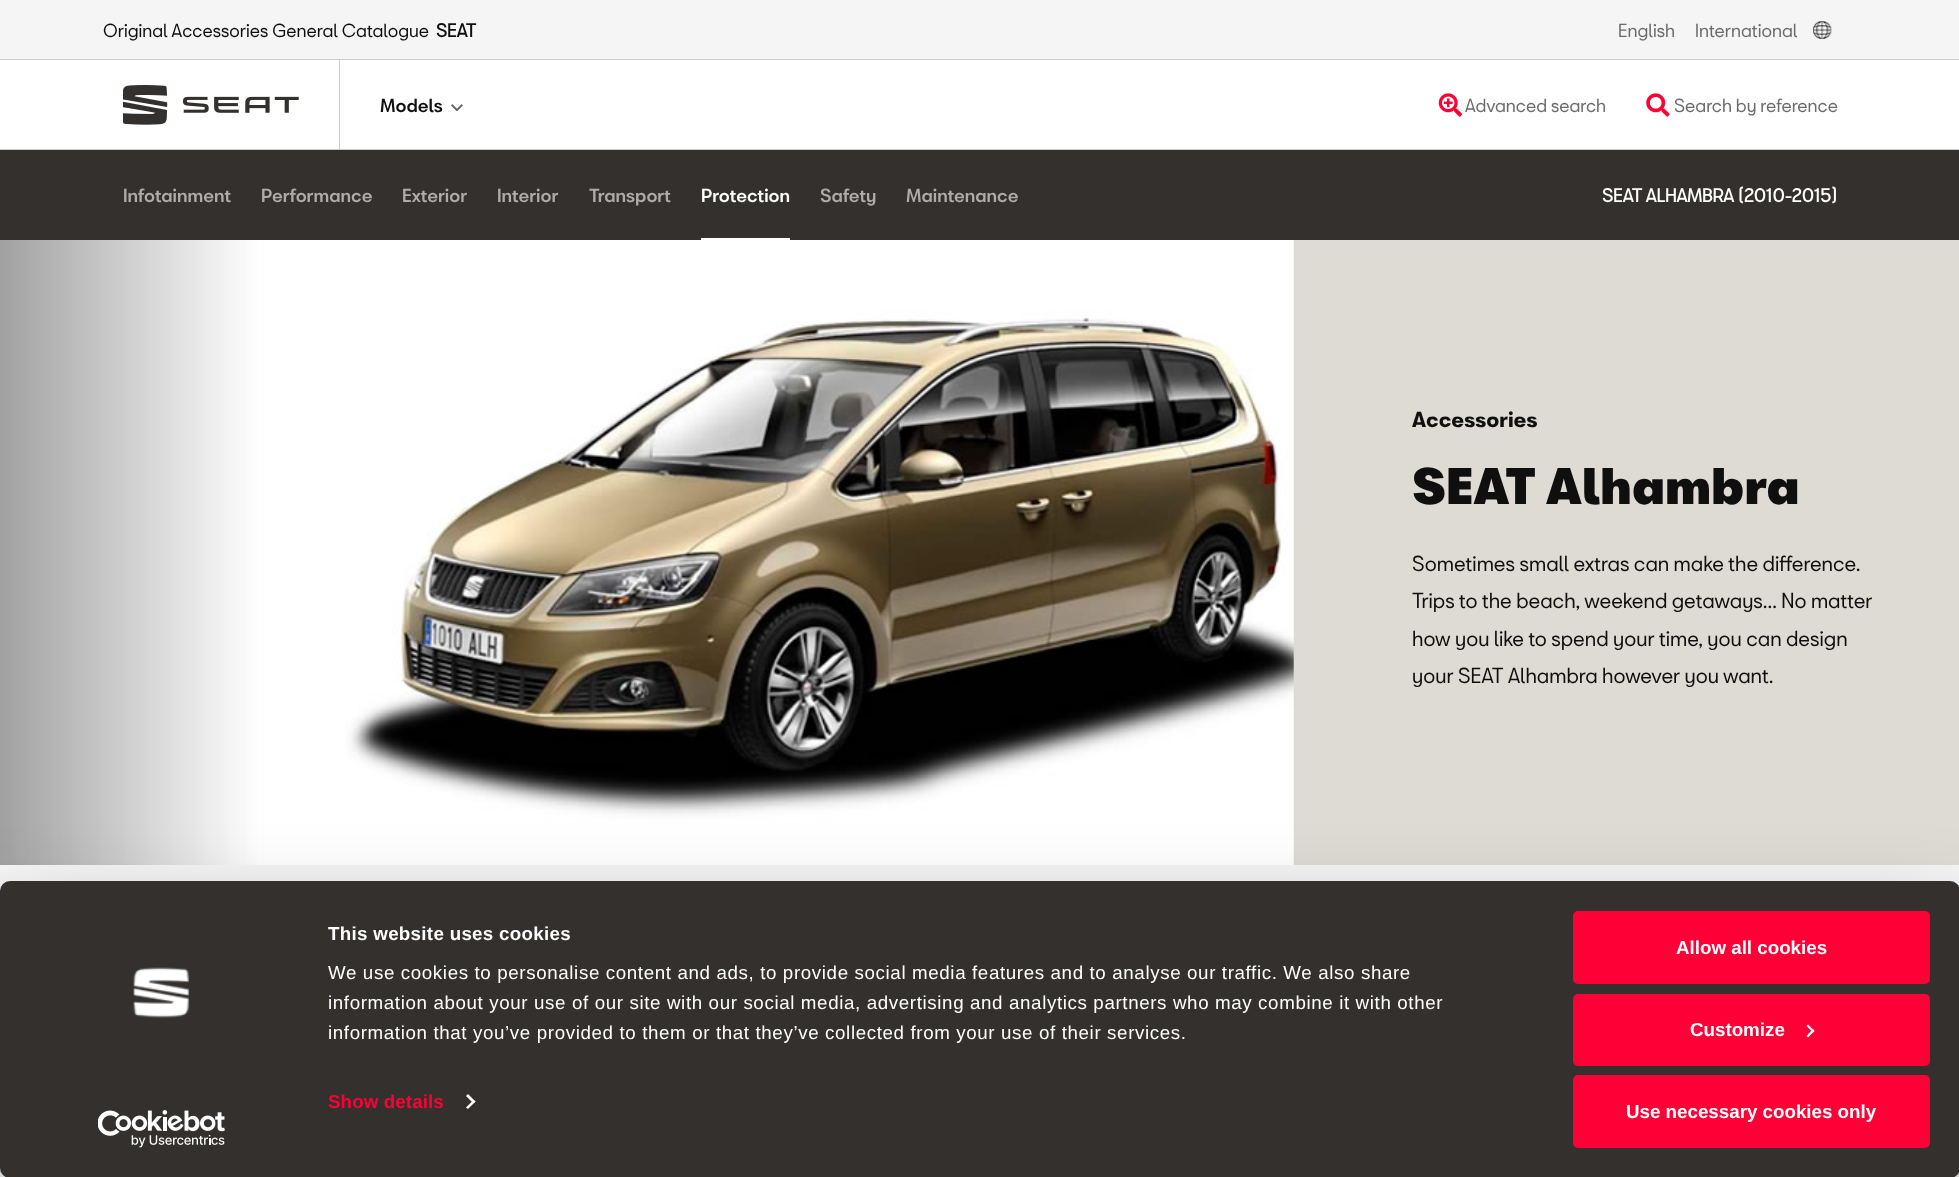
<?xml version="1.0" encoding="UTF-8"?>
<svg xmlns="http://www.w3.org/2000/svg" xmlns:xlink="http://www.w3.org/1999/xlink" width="1959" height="1177">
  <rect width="100%" height="100%" fill="#f5f5f5" />
  <rect y="60" width="1959" height="89" fill="#ffffff" />
  <rect y="59" width="1959" height="1" fill="#cccccc" />
  <image x="1813" y="21" width="19" height="18" xlink:href="image1.png" />
  <rect y="149" width="1959" height="1" fill="#cccccc" />
  <rect x="339" y="60" width="1" height="90" fill="#cccccc" />
  <image x="123" y="85" width="176" height="40" xlink:href="image2.png" />
  <image x="451" y="104" width="12" height="7" xlink:href="image3.png" />
  <image x="1438" y="93" width="25" height="24" xlink:href="image4.png" />
  <image x="1646" y="93" width="24" height="24" xlink:href="image5.png" />
  <rect y="150" width="1959" height="90" fill="#33302e" />
  <rect x="701" y="238" width="89" height="2" fill="#ffffff" />
  <rect x="1293" y="240" width="666" height="625" fill="#dedad4" />
  <image x="0" y="240" width="1294" height="625" xlink:href="image6.png" />
  <rect y="919" width="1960" height="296" rx="10" fill="#000000" fill-opacity="0.3" filter="blur(44px)" />
  <rect y="881" width="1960" height="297" rx="10" fill="#33302e" />
  <image x="133" y="967" width="57" height="51" xlink:href="image7.png" />
  <image x="98" y="1110" width="127" height="38" xlink:href="image8.png" />
  <path d="M 468 1094 l 7.5 7.5 l -2 2 l -7.5 -7.5 z" fill="#ffffff" />
  <path d="M 473.5 1100 l 2 1.5 l -7.5 7.5 l -2 -1.5 z" fill="#ffffff" />
  <rect x="1574.5" y="912.5" width="354" height="70" rx="3.5" fill="#ff0036" stroke="#ff0036" stroke-width="3" />
  <rect x="1574.5" y="995.5" width="354" height="69" rx="3.5" fill="#ff0036" stroke="#ff0036" stroke-width="3" />
  <path d="M 1808 1024.5 l 6.5 6.5 l -1.5 1.5 l -6.5 -6.5 z" fill="#ffffff" />
  <path d="M 1813 1029 l 1.5 2 l -6.5 6.5 l -1.5 -1.5 z" fill="#ffffff" />
  <rect x="1574.5" y="1076.5" width="354" height="70" rx="3.5" fill="#ff0036" stroke="#ff0036" stroke-width="3" />
  <text x="103" y="37" style="font-family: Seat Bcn; font-size: 17.5px; fill: #0f0f0f">Original Accessories General Catalogue</text>
  <text x="436" y="37" style="font-family: 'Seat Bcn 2'; font-size: 17.5px; font-weight: bold; fill: #0f0f0f">SEAT</text>
  <text x="1618" y="37" style="font-family: Seat Bcn; font-size: 17.5px; fill: #6b6b6b">English</text>
  <text x="1695" y="37" style="font-family: Seat Bcn; font-size: 17.5px; fill: #6b6b6b">International</text>
  <text x="380" y="112" style="font-family: Seat Bcn; font-size: 17.5px; font-weight: 500; fill: #0f0f0f">Models</text>
  <text x="1465" y="112" style="font-family: Seat Bcn; font-size: 17.5px; fill: #6b6b6b">Advanced search</text>
  <text x="1674" y="112" style="font-family: Seat Bcn; font-size: 17.5px; fill: #6b6b6b">Search by reference</text>
  <text x="123" y="202" style="font-family: Seat Bcn; font-size: 17.5px; font-weight: 500; fill: #adacab">Infotainment</text>
  <text x="261" y="202" style="font-family: Seat Bcn; font-size: 17.5px; font-weight: 500; fill: #adacab">Performance</text>
  <text x="402" y="202" style="font-family: Seat Bcn; font-size: 17.5px; font-weight: 500; fill: #adacab">Exterior</text>
  <text x="497" y="202" style="font-family: Seat Bcn; font-size: 17.5px; font-weight: 500; fill: #adacab">Interior</text>
  <text x="589" y="202" style="font-family: Seat Bcn; font-size: 17.5px; font-weight: 500; fill: #adacab">Transport</text>
  <text x="701" y="202" style="font-family: Seat Bcn; font-size: 17.5px; font-weight: 500; fill: #ffffff">Protection</text>
  <text x="820" y="202" style="font-family: Seat Bcn; font-size: 17.5px; font-weight: 500; fill: #adacab">Safety</text>
  <text x="906" y="202" style="font-family: Seat Bcn; font-size: 17.5px; font-weight: 500; fill: #adacab">Maintenance</text>
  <text x="1602" y="202" style="font-family: 'Seat Bcn 2'; font-size: 17.5px; font-weight: bold; fill: #ffffff">SEAT ALHAMBRA (2010-2015)</text>
  <text x="1412" y="427" style="font-family: Seat Bcn; font-size: 20px; font-weight: bold; fill: #0f0f0f">Accessories</text>
  <text x="1412" y="504" style="font-family: Seat Bcn; font-size: 47.5px; font-weight: 900; fill: #0f0f0f">SEAT Alhambra</text>
  <text x="1412" y="571" style="font-family: Seat Bcn; font-size: 20px; fill: #0f0f0f">Sometimes small extras can make the difference.</text>
  <text x="1412" y="608" style="font-family: Seat Bcn; font-size: 20px; fill: #0f0f0f">Trips to the beach, weekend getaways... No matter</text>
  <text x="1412" y="646" style="font-family: Seat Bcn; font-size: 20px; fill: #0f0f0f">how you like to spend your time, you can design</text>
  <text x="1412" y="683" style="font-family: Seat Bcn; font-size: 20px; fill: #0f0f0f">your SEAT Alhambra however you want.</text>
  <text x="328" y="940" style="font-family: Liberation Sans; font-size: 18.75px; font-weight: bold; letter-spacing: 0.3px; fill: #ffffff">This website uses cookies</text>
  <text x="328" y="979" style="font-family: Liberation Sans; font-size: 18.75px; letter-spacing: 0.62px; fill: #ffffff">We use cookies to personalise content and ads, to provide social media features and to analyse our traffic. We also share</text>
  <text x="328" y="1009" style="font-family: Liberation Sans; font-size: 18.75px; letter-spacing: 0.62px; fill: #ffffff">information about your use of our site with our social media, advertising and analytics partners who may combine it with other</text>
  <text x="328" y="1039" style="font-family: Liberation Sans; font-size: 18.75px; letter-spacing: 0.62px; fill: #ffffff">information that you’ve provided to them or that they’ve collected from your use of their services.</text>
  <text x="328" y="1108" style="font-family: Liberation Sans; font-size: 18.75px; font-weight: bold; letter-spacing: 0.1px; fill: #ff0036">Show details</text>
  <text x="1676" y="954" style="font-family: Liberation Sans; font-size: 18.75px; font-weight: bold; fill: #ffffff">Allow all cookies</text>
  <text x="1690" y="1036" style="font-family: Liberation Sans; font-size: 18.75px; font-weight: bold; fill: #ffffff">Customize</text>
  <text x="1626" y="1118" style="font-family: Liberation Sans; font-size: 18.75px; font-weight: bold; fill: #ffffff">Use necessary cookies only</text>
</svg>
